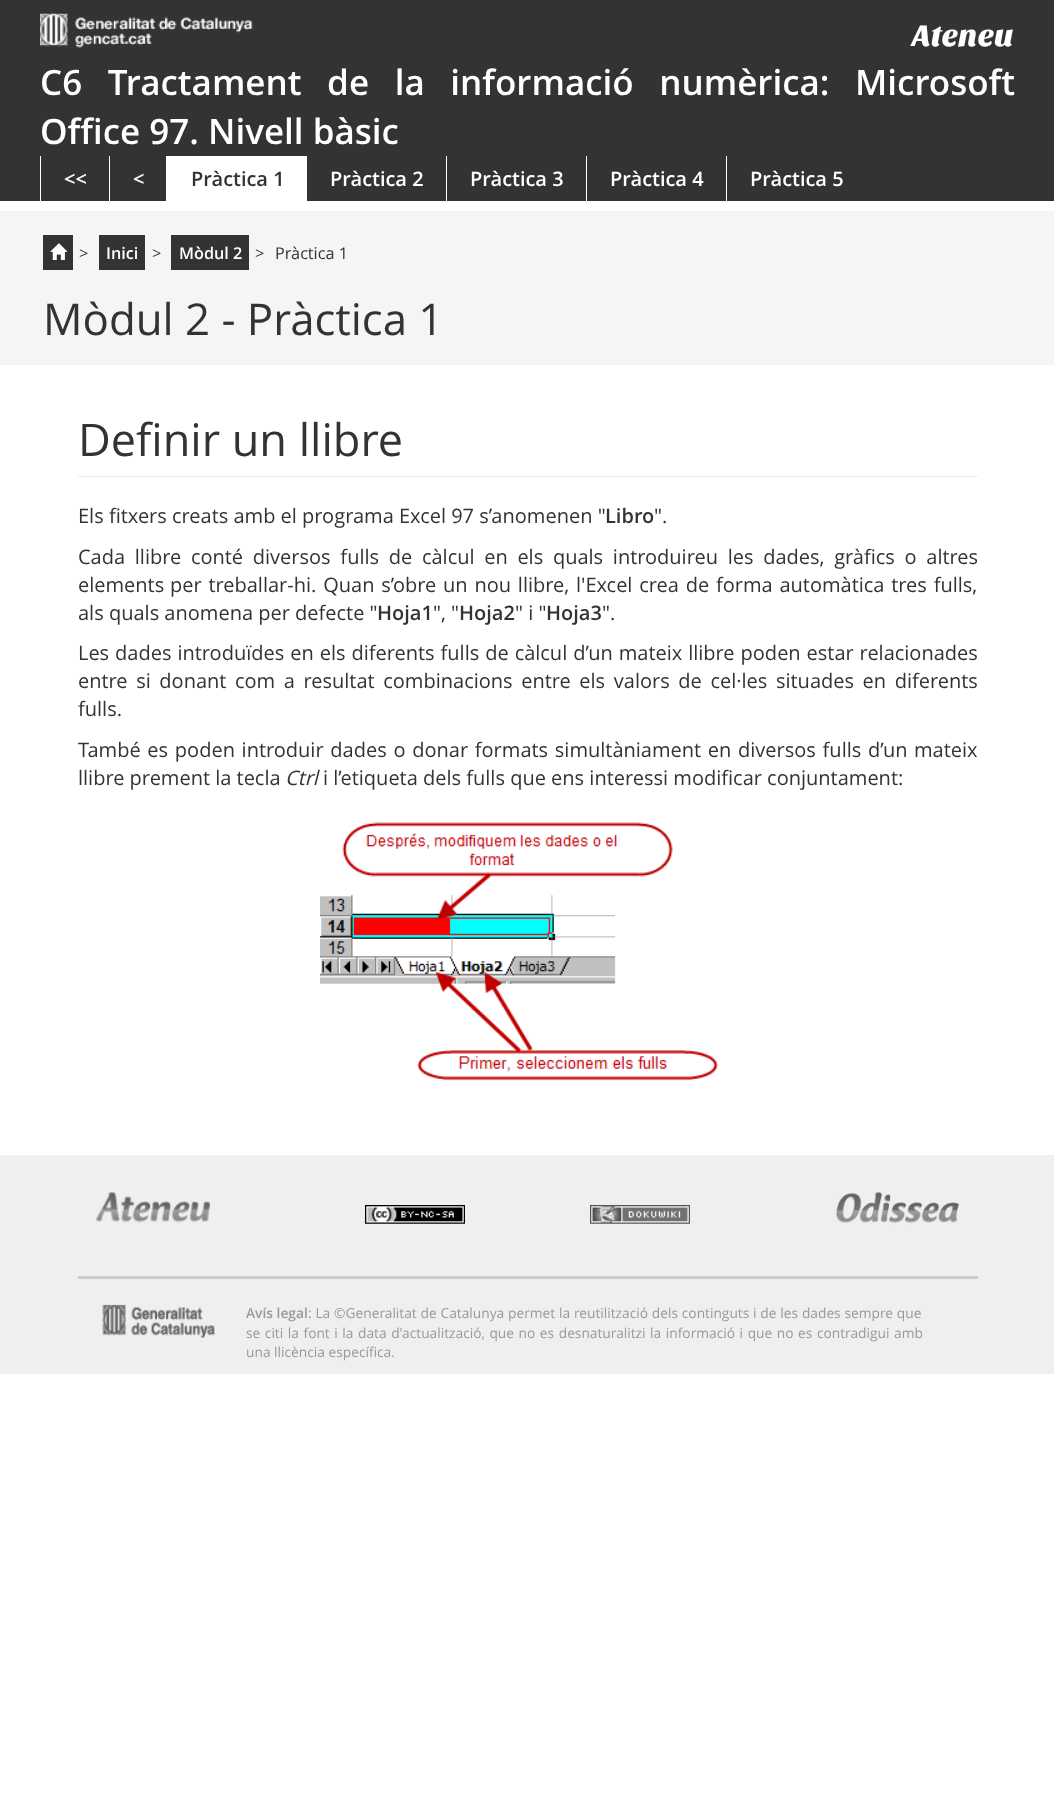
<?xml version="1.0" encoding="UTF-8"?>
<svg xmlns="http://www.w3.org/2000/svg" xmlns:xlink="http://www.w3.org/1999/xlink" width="1054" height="1802">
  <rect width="100%" height="100%" fill="#ffffff" />
  <rect width="1054" height="201" fill="#333333" />
  <image x="40" y="13" width="213" height="35" xlink:href="image1.png" />
  <rect x="40" y="156" width="1" height="45" fill="#ffffff" />
  <rect x="109" y="156" width="1" height="45" fill="#ffffff" />
  <rect x="166" y="156" width="141" height="45" fill="#ffffff" />
  <rect x="446" y="156" width="1" height="45" fill="#ffffff" />
  <rect x="586" y="156" width="1" height="45" fill="#ffffff" />
  <rect x="726" y="156" width="1" height="45" fill="#ffffff" />
  <rect y="211" width="1054" height="154" fill="#f5f5f5" />
  <rect x="43" y="235" width="30" height="35" fill="#333333" />
  <image x="50" y="243" width="18" height="17" xlink:href="image2.png" />
  <rect x="99" y="235" width="46" height="35" fill="#333333" />
  <rect x="171" y="235" width="78" height="35" fill="#333333" />
  <rect x="78" y="476" width="900" height="1" fill="#eeeeee" />
  <image x="320" y="822" width="398" height="259" xlink:href="image3.png" />
  <rect y="1155" width="1054" height="219" fill="#efefef" />
  <image x="96" y="1192" width="114" height="31" xlink:href="image4.png" />
  <image x="365" y="1205" width="100" height="19" xlink:href="image5.png" />
  <image x="590" y="1205" width="100" height="19" xlink:href="image6.png" />
  <image x="836" y="1192" width="123" height="34" xlink:href="image7.png" />
  <rect x="78" y="1276" width="900" height="3" fill="#cccccc" />
  <image x="102" y="1304" width="113" height="34" xlink:href="image8.png" />
  <text x="912" y="46" style="font-family: Sansita One; font-size: 31px; fill: #ffffff">Ateneu</text>
  <text x="40" y="95" word-spacing="16.5" style="font-family: Open Sans; font-size: 35px; font-weight: 600; fill: #ffffff">C6 Tractament de la informació numèrica: Microsoft</text>
  <text x="40" y="144" style="font-family: Open Sans; font-size: 35px; font-weight: 600; fill: #ffffff">Office 97. Nivell bàsic</text>
  <text x="64" y="186" style="font-family: Open Sans; font-size: 20px; font-weight: 600; fill: #ffffff">&lt;&lt;</text>
  <text x="133" y="186" style="font-family: Open Sans; font-size: 20px; font-weight: 600; fill: #ffffff">&lt;</text>
  <text x="191" y="186" style="font-family: Open Sans; font-size: 20px; font-weight: 600; fill: #333333">Pràctica 1</text>
  <text x="330" y="186" style="font-family: Open Sans; font-size: 20px; font-weight: 600; fill: #ffffff">Pràctica 2</text>
  <text x="470" y="186" style="font-family: Open Sans; font-size: 20px; font-weight: 600; fill: #ffffff">Pràctica 3</text>
  <text x="610" y="186" style="font-family: Open Sans; font-size: 20px; font-weight: 600; fill: #ffffff">Pràctica 4</text>
  <text x="750" y="186" style="font-family: Open Sans; font-size: 20px; font-weight: 600; fill: #ffffff">Pràctica 5</text>
  <text x="79" y="259" style="font-family: Open Sans; font-size: 16.25px; fill: #333333">&gt;</text>
  <text x="106" y="259" style="font-family: Open Sans; font-size: 16.25px; font-weight: 600; fill: #ffffff">Inici</text>
  <text x="152" y="259" style="font-family: Open Sans; font-size: 16.25px; fill: #333333">&gt;</text>
  <text x="179" y="259" style="font-family: Open Sans; font-size: 16.25px; font-weight: 600; fill: #ffffff">Mòdul 2</text>
  <text x="255" y="259" style="font-family: Open Sans; font-size: 16.25px; fill: #333333">&gt;</text>
  <text x="275" y="259" style="font-family: Open Sans; font-size: 16.25px; fill: #333333">Pràctica 1</text>
  <text x="43" y="335" style="font-family: Open Sans; font-size: 43.75px; fill: #333333">Mòdul 2 - Pràctica 1</text>
  <text x="78" y="456" style="font-family: Open Sans; font-size: 45px; fill: #333333">Definir un llibre</text>
  <text x="78" y="523" style="font-family: Open Sans; font-size: 20px; fill: #333333">Els fitxers creats amb el programa Excel 97 s’anomenen "</text>
  <text x="605" y="523" style="font-family: Open Sans; font-size: 20px; font-weight: 600; fill: #333333">Libro</text>
  <text x="654" y="523" style="font-family: Open Sans; font-size: 20px; fill: #333333">".</text>
  <text x="78" y="564" word-spacing="4.5" style="font-family: Open Sans; font-size: 20px; fill: #333333">Cada llibre conté diversos fulls de càlcul en els quals introduireu les dades, gràfics o altres</text>
  <text x="78" y="592" style="font-family: Open Sans; font-size: 20px; fill: #333333">elements</text>
  <text x="170" y="592" word-spacing="1.6" style="font-family: Open Sans; font-size: 20px; fill: #333333">per treballar-hi. Quan s’obre un nou llibre, l'Excel crea de forma automàtica tres fulls,</text>
  <text x="78" y="620" style="font-family: Open Sans; font-size: 20px; fill: #333333">als quals anomena per defecte "</text>
  <text x="377" y="620" style="font-family: Open Sans; font-size: 20px; font-weight: 600; fill: #333333">Hoja1</text>
  <text x="433" y="620" style="font-family: Open Sans; font-size: 20px; fill: #333333">", "</text>
  <text x="459" y="620" style="font-family: Open Sans; font-size: 20px; font-weight: 600; fill: #333333">Hoja2</text>
  <text x="515" y="620" style="font-family: Open Sans; font-size: 20px; fill: #333333">" i "</text>
  <text x="546" y="620" style="font-family: Open Sans; font-size: 20px; font-weight: 600; fill: #333333">Hoja3</text>
  <text x="602" y="620" style="font-family: Open Sans; font-size: 20px; fill: #333333">".</text>
  <text x="78" y="660" word-spacing="0.75" style="font-family: Open Sans; font-size: 20px; fill: #333333">Les dades introduïdes en els diferents fulls de càlcul d’un mateix llibre poden estar relacionades</text>
  <text x="78" y="688" word-spacing="3.4" style="font-family: Open Sans; font-size: 20px; fill: #333333">entre si donant com a resultat combinacions entre els valors de cel·les situades en diferents</text>
  <text x="78" y="716" style="font-family: Open Sans; font-size: 20px; fill: #333333">fulls.</text>
  <text x="78" y="757" word-spacing="1.5" style="font-family: Open Sans; font-size: 20px; fill: #333333">També es poden introduir dades o donar formats simultàniament en diversos fulls d’un</text>
  <text x="914" y="757" style="font-family: Open Sans; font-size: 20px; fill: #333333">mateix</text>
  <text x="78" y="785" style="font-family: Open Sans; font-size: 20px; fill: #333333">llibre prement la tecla</text>
  <text x="285" y="785" style="font-family: Open Sans; font-size: 20px; font-style: italic; fill: #333333">Ctrl</text>
  <text x="323" y="785" style="font-family: Open Sans; font-size: 20px; fill: #333333">i l’etiqueta dels fulls que ens interessi modificar conjuntament:</text>
  <text x="246" y="1318" style="font-family: Open Sans; font-size: 13.75px; font-weight: 600; fill: #999999">Avís legal</text>
  <text x="308" y="1318" word-spacing="0.25" style="font-family: Open Sans; font-size: 13.75px; fill: #999999">: La ©Generalitat de Catalunya permet la reutilització dels continguts i de les dades sempre que</text>
  <text x="246" y="1338" word-spacing="1" style="font-family: Open Sans; font-size: 13.75px; fill: #999999">se citi la font i la data d'actualització, que no es desnaturalitzi la informació i que no es contradigui amb</text>
  <text x="246" y="1357" style="font-family: Open Sans; font-size: 13.75px; fill: #999999">una llicència específica.</text>
</svg>
